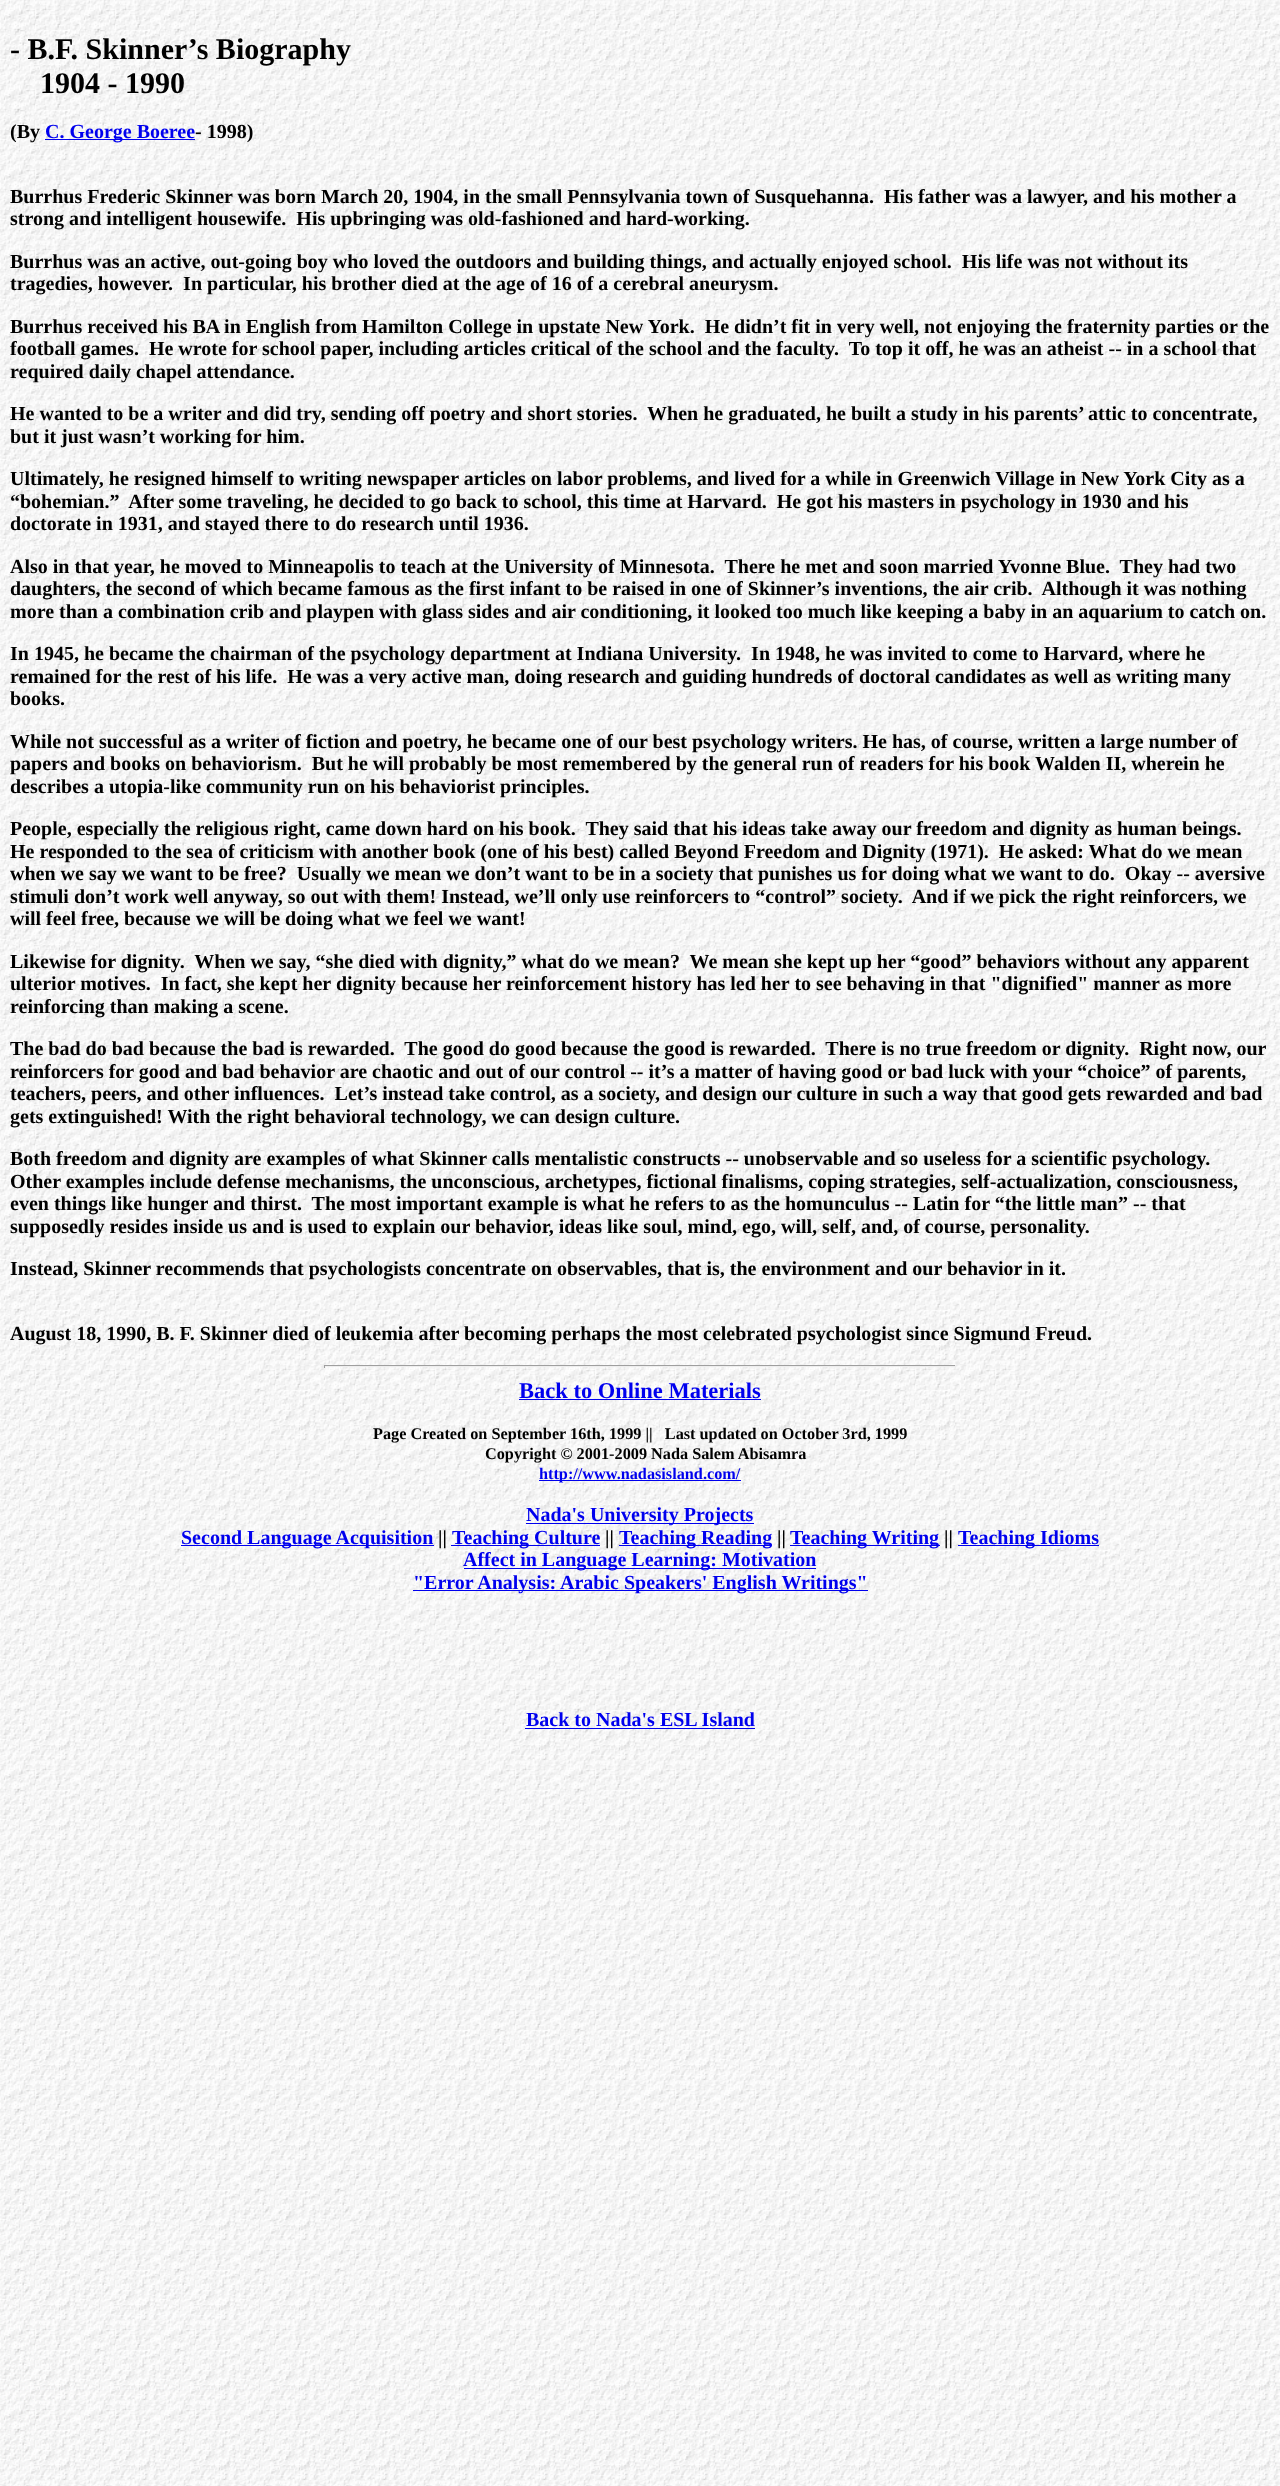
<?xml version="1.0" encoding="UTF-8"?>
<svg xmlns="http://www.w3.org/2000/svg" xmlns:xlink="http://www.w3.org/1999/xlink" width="1280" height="2486">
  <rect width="100%" height="100%" fill="#ffffff" />
  <image x="0" y="0" width="1280" height="2486" xlink:href="image1.png" />
  <rect x="45" y="139" width="150" height="1" fill="#0000ee" />
  <rect x="324" y="1365" width="632" height="1" fill="#9f9f9f" />
  <rect x="955" y="1365" width="1" height="3" fill="#eeeeee" />
  <rect x="324" y="1366" width="632" height="1" fill="#eeeeee" />
  <rect x="324" y="1365" width="1" height="3" fill="#9f9f9f" />
  <rect x="519" y="1399" width="242" height="1" fill="#0000ee" />
  <rect x="539" y="1480" width="202" height="1" fill="#0000ee" />
  <rect x="526" y="1523" width="228" height="1" fill="#0000ee" />
  <rect x="181" y="1545" width="253" height="1" fill="#0000ee" />
  <rect x="451" y="1545" width="149" height="1" fill="#0000ee" />
  <rect x="619" y="1545" width="152" height="1" fill="#0000ee" />
  <rect x="790" y="1545" width="150" height="1" fill="#0000ee" />
  <rect x="958" y="1545" width="141" height="1" fill="#0000ee" />
  <rect x="464" y="1568" width="352" height="1" fill="#0000ee" />
  <rect x="413" y="1590" width="455" height="1" fill="#0000ee" />
  <rect x="525" y="1728" width="230" height="1" fill="#0000ee" />
  <text x="10" y="59" style="font-family: Liberation Serif; font-size: 30px; font-weight: bold; fill: #000000">- B.F. Skinner’s Biography</text>
  <text x="40" y="93" style="font-family: Liberation Serif; font-size: 30px; font-weight: bold; fill: #000000">1904 - 1990</text>
  <text x="10" y="138" style="font-family: Liberation Serif; font-size: 20px; font-weight: bold; fill: #000000">(By</text>
  <text x="45" y="138" style="font-family: Liberation Serif; font-size: 20px; font-weight: bold; fill: #0000ee">C. George Boeree</text>
  <text x="195" y="138" style="font-family: Liberation Serif; font-size: 20px; font-weight: bold; fill: #000000">- 1998)</text>
  <text x="10" y="203" style="font-family: Liberation Serif; font-size: 20px; font-weight: bold; fill: #000000" xml:space="preserve">Burrhus Frederic Skinner was born March 20, 1904, in the small Pennsylvania town of Susquehanna.  His father was a lawyer, and his mother a</text>
  <text x="10" y="225" style="font-family: Liberation Serif; font-size: 20px; font-weight: bold; fill: #000000" xml:space="preserve">strong and intelligent housewife.  His upbringing was old-fashioned and hard-working.</text>
  <text x="10" y="268" style="font-family: Liberation Serif; font-size: 20px; font-weight: bold; fill: #000000" xml:space="preserve">Burrhus was an active, out-going boy who loved the outdoors and building things, and actually enjoyed school.  His life was not without its</text>
  <text x="10" y="290" style="font-family: Liberation Serif; font-size: 20px; font-weight: bold; fill: #000000" xml:space="preserve">tragedies, however.  In particular, his brother died at the age of 16 of a cerebral aneurysm.</text>
  <text x="10" y="333" style="font-family: Liberation Serif; font-size: 20px; font-weight: bold; fill: #000000" xml:space="preserve">Burrhus received his BA in English from Hamilton College in upstate New York.  He didn’t fit in very well, not enjoying the fraternity parties or the</text>
  <text x="10" y="355" style="font-family: Liberation Serif; font-size: 20px; font-weight: bold; fill: #000000" xml:space="preserve">football games.  He wrote for school paper, including articles critical of the school and the faculty.  To top it off, he was an atheist -- in a school that</text>
  <text x="10" y="378" style="font-family: Liberation Serif; font-size: 20px; font-weight: bold; fill: #000000">required daily chapel attendance.</text>
  <text x="10" y="420" style="font-family: Liberation Serif; font-size: 20px; font-weight: bold; fill: #000000" xml:space="preserve">He wanted to be a writer and did try, sending off poetry and short stories.  When he graduated, he built a study in his parents’ attic to concentrate,</text>
  <text x="10" y="443" style="font-family: Liberation Serif; font-size: 20px; font-weight: bold; fill: #000000">but it just wasn’t working for him.</text>
  <text x="10" y="485" style="font-family: Liberation Serif; font-size: 20px; font-weight: bold; fill: #000000">Ultimately, he resigned himself to writing newspaper articles on labor problems, and lived for a while in Greenwich Village in New York City as a</text>
  <text x="10" y="508" style="font-family: Liberation Serif; font-size: 20px; font-weight: bold; fill: #000000" xml:space="preserve">“bohemian.”  After some traveling, he decided to go back to school, this time at Harvard.  He got his masters in psychology in 1930 and his</text>
  <text x="10" y="530" style="font-family: Liberation Serif; font-size: 20px; font-weight: bold; fill: #000000">doctorate in 1931, and stayed there to do research until 1936.</text>
  <text x="10" y="573" style="font-family: Liberation Serif; font-size: 20px; font-weight: bold; fill: #000000" xml:space="preserve">Also in that year, he moved to Minneapolis to teach at the University of Minnesota.  There he met and soon married Yvonne Blue.  They had two</text>
  <text x="10" y="595" style="font-family: Liberation Serif; font-size: 20px; font-weight: bold; fill: #000000" xml:space="preserve">daughters, the second of which became famous as the first infant to be raised in one of Skinner’s inventions, the air crib.  Although it was nothing</text>
  <text x="10" y="618" style="font-family: Liberation Serif; font-size: 20px; font-weight: bold; fill: #000000">more than a combination crib and playpen with glass sides and air conditioning, it looked too much like keeping a baby in an aquarium to catch on.</text>
  <text x="10" y="660" style="font-family: Liberation Serif; font-size: 20px; font-weight: bold; fill: #000000" xml:space="preserve">In 1945, he became the chairman of the psychology department at Indiana University.  In 1948, he was invited to come to Harvard, where he</text>
  <text x="10" y="683" style="font-family: Liberation Serif; font-size: 20px; font-weight: bold; fill: #000000" xml:space="preserve">remained for the rest of his life.  He was a very active man, doing research and guiding hundreds of doctoral candidates as well as writing many</text>
  <text x="10" y="705" style="font-family: Liberation Serif; font-size: 20px; font-weight: bold; fill: #000000">books.</text>
  <text x="10" y="748" style="font-family: Liberation Serif; font-size: 20px; font-weight: bold; fill: #000000">While not successful as a writer of fiction and poetry, he became one of our best psychology writers. He has, of course, written a large number of</text>
  <text x="10" y="770" style="font-family: Liberation Serif; font-size: 20px; font-weight: bold; fill: #000000" xml:space="preserve">papers and books on behaviorism.  But he will probably be most remembered by the general run of readers for his book Walden II, wherein he</text>
  <text x="10" y="793" style="font-family: Liberation Serif; font-size: 20px; font-weight: bold; fill: #000000">describes a utopia-like community run on his behaviorist principles.</text>
  <text x="10" y="835" style="font-family: Liberation Serif; font-size: 20px; font-weight: bold; fill: #000000" xml:space="preserve">People, especially the religious right, came down hard on his book.  They said that his ideas take away our freedom and dignity as human beings.</text>
  <text x="10" y="858" style="font-family: Liberation Serif; font-size: 20px; font-weight: bold; fill: #000000" xml:space="preserve">He responded to the sea of criticism with another book (one of his best) called Beyond Freedom and Dignity (1971).  He asked: What do we mean</text>
  <text x="10" y="880" style="font-family: Liberation Serif; font-size: 20px; font-weight: bold; fill: #000000" xml:space="preserve">when we say we want to be free?  Usually we mean we don’t want to be in a society that punishes us for doing what we want to do.  Okay -- aversive</text>
  <text x="10" y="903" style="font-family: Liberation Serif; font-size: 20px; font-weight: bold; fill: #000000" xml:space="preserve">stimuli don’t work well anyway, so out with them! Instead, we’ll only use reinforcers to “control” society.  And if we pick the right reinforcers, we</text>
  <text x="10" y="925" style="font-family: Liberation Serif; font-size: 20px; font-weight: bold; fill: #000000">will feel free, because we will be doing what we feel we want!</text>
  <text x="10" y="968" style="font-family: Liberation Serif; font-size: 20px; font-weight: bold; fill: #000000" xml:space="preserve">Likewise for dignity.  When we say, “she died with dignity,” what do we mean?  We mean she kept up her “good” behaviors without any apparent</text>
  <text x="10" y="990" style="font-family: Liberation Serif; font-size: 20px; font-weight: bold; fill: #000000" xml:space="preserve">ulterior motives.  In fact, she kept her dignity because her reinforcement history has led her to see behaving in that "dignified" manner as more</text>
  <text x="10" y="1013" style="font-family: Liberation Serif; font-size: 20px; font-weight: bold; fill: #000000">reinforcing than making a scene.</text>
  <text x="10" y="1055" style="font-family: Liberation Serif; font-size: 20px; font-weight: bold; fill: #000000" xml:space="preserve">The bad do bad because the bad is rewarded.  The good do good because the good is rewarded.  There is no true freedom or dignity.  Right now, our</text>
  <text x="10" y="1078" style="font-family: Liberation Serif; font-size: 20px; font-weight: bold; fill: #000000">reinforcers for good and bad behavior are chaotic and out of our control -- it’s a matter of having good or bad luck with your “choice” of parents,</text>
  <text x="10" y="1100" style="font-family: Liberation Serif; font-size: 20px; font-weight: bold; fill: #000000" xml:space="preserve">teachers, peers, and other influences.  Let’s instead take control, as a society, and design our culture in such a way that good gets rewarded and bad</text>
  <text x="10" y="1123" style="font-family: Liberation Serif; font-size: 20px; font-weight: bold; fill: #000000">gets extinguished! With the right behavioral technology, we can design culture.</text>
  <text x="10" y="1165" style="font-family: Liberation Serif; font-size: 20px; font-weight: bold; fill: #000000">Both freedom and dignity are examples of what Skinner calls mentalistic constructs -- unobservable and so useless for a scientific psychology.</text>
  <text x="10" y="1188" style="font-family: Liberation Serif; font-size: 20px; font-weight: bold; fill: #000000">Other examples include defense mechanisms, the unconscious, archetypes, fictional finalisms, coping strategies, self-actualization, consciousness,</text>
  <text x="10" y="1210" style="font-family: Liberation Serif; font-size: 20px; font-weight: bold; fill: #000000" xml:space="preserve">even things like hunger and thirst.  The most important example is what he refers to as the homunculus -- Latin for “the little man” -- that</text>
  <text x="10" y="1233" style="font-family: Liberation Serif; font-size: 20px; font-weight: bold; fill: #000000">supposedly resides inside us and is used to explain our behavior, ideas like soul, mind, ego, will, self, and, of course, personality.</text>
  <text x="10" y="1275" style="font-family: Liberation Serif; font-size: 20px; font-weight: bold; fill: #000000">Instead, Skinner recommends that psychologists concentrate on observables, that is, the environment and our behavior in it.</text>
  <text x="10" y="1340" style="font-family: Liberation Serif; font-size: 20px; font-weight: bold; fill: #000000">August 18, 1990, B. F. Skinner died of leukemia after becoming perhaps the most celebrated psychologist since Sigmund Freud.</text>
  <text x="519" y="1398" style="font-family: Liberation Serif; font-size: 22.5px; font-weight: bold; fill: #0000ee">Back to Online Materials</text>
  <text x="373" y="1439" style="font-family: Liberation Serif; font-size: 16.25px; font-weight: bold; fill: #000000" xml:space="preserve">Page Created on September 16th, 1999 ||   Last updated on October 3rd, 1999</text>
  <text x="485" y="1459" style="font-family: Liberation Serif; font-size: 16.25px; font-weight: bold; fill: #000000">Copyright © 2001-2009 Nada Salem Abisamra</text>
  <text x="539" y="1479" style="font-family: Liberation Serif; font-size: 16.25px; font-weight: bold; fill: #0000ee">http://www.nadasisland.com/</text>
  <text x="526" y="1521" style="font-family: Liberation Serif; font-size: 20px; font-weight: bold; fill: #0000ee">Nada's University Projects</text>
  <text x="181" y="1544" style="font-family: Liberation Serif; font-size: 20px; font-weight: bold; fill: #0000ee">Second Language Acquisition</text>
  <text x="438" y="1544" style="font-family: Liberation Serif; font-size: 20px; font-weight: bold; fill: #000000">||</text>
  <text x="452" y="1544" style="font-family: Liberation Serif; font-size: 20px; font-weight: bold; fill: #0000ee">Teaching Culture</text>
  <text x="605" y="1544" style="font-family: Liberation Serif; font-size: 20px; font-weight: bold; fill: #000000">||</text>
  <text x="619" y="1544" style="font-family: Liberation Serif; font-size: 20px; font-weight: bold; fill: #0000ee">Teaching Reading</text>
  <text x="777" y="1544" style="font-family: Liberation Serif; font-size: 20px; font-weight: bold; fill: #000000">||</text>
  <text x="790" y="1544" style="font-family: Liberation Serif; font-size: 20px; font-weight: bold; fill: #0000ee">Teaching Writing</text>
  <text x="944" y="1544" style="font-family: Liberation Serif; font-size: 20px; font-weight: bold; fill: #000000">||</text>
  <text x="958" y="1544" style="font-family: Liberation Serif; font-size: 20px; font-weight: bold; fill: #0000ee">Teaching Idioms</text>
  <text x="463" y="1566" style="font-family: Liberation Serif; font-size: 20px; font-weight: bold; fill: #0000ee">Affect in Language Learning: Motivation</text>
  <text x="413" y="1589" style="font-family: Liberation Serif; font-size: 20px; font-weight: bold; fill: #0000ee">"Error Analysis: Arabic Speakers' English Writings"</text>
  <text x="526" y="1726" style="font-family: Liberation Serif; font-size: 20px; font-weight: bold; fill: #0000ee">Back to Nada's ESL Island</text>
</svg>
